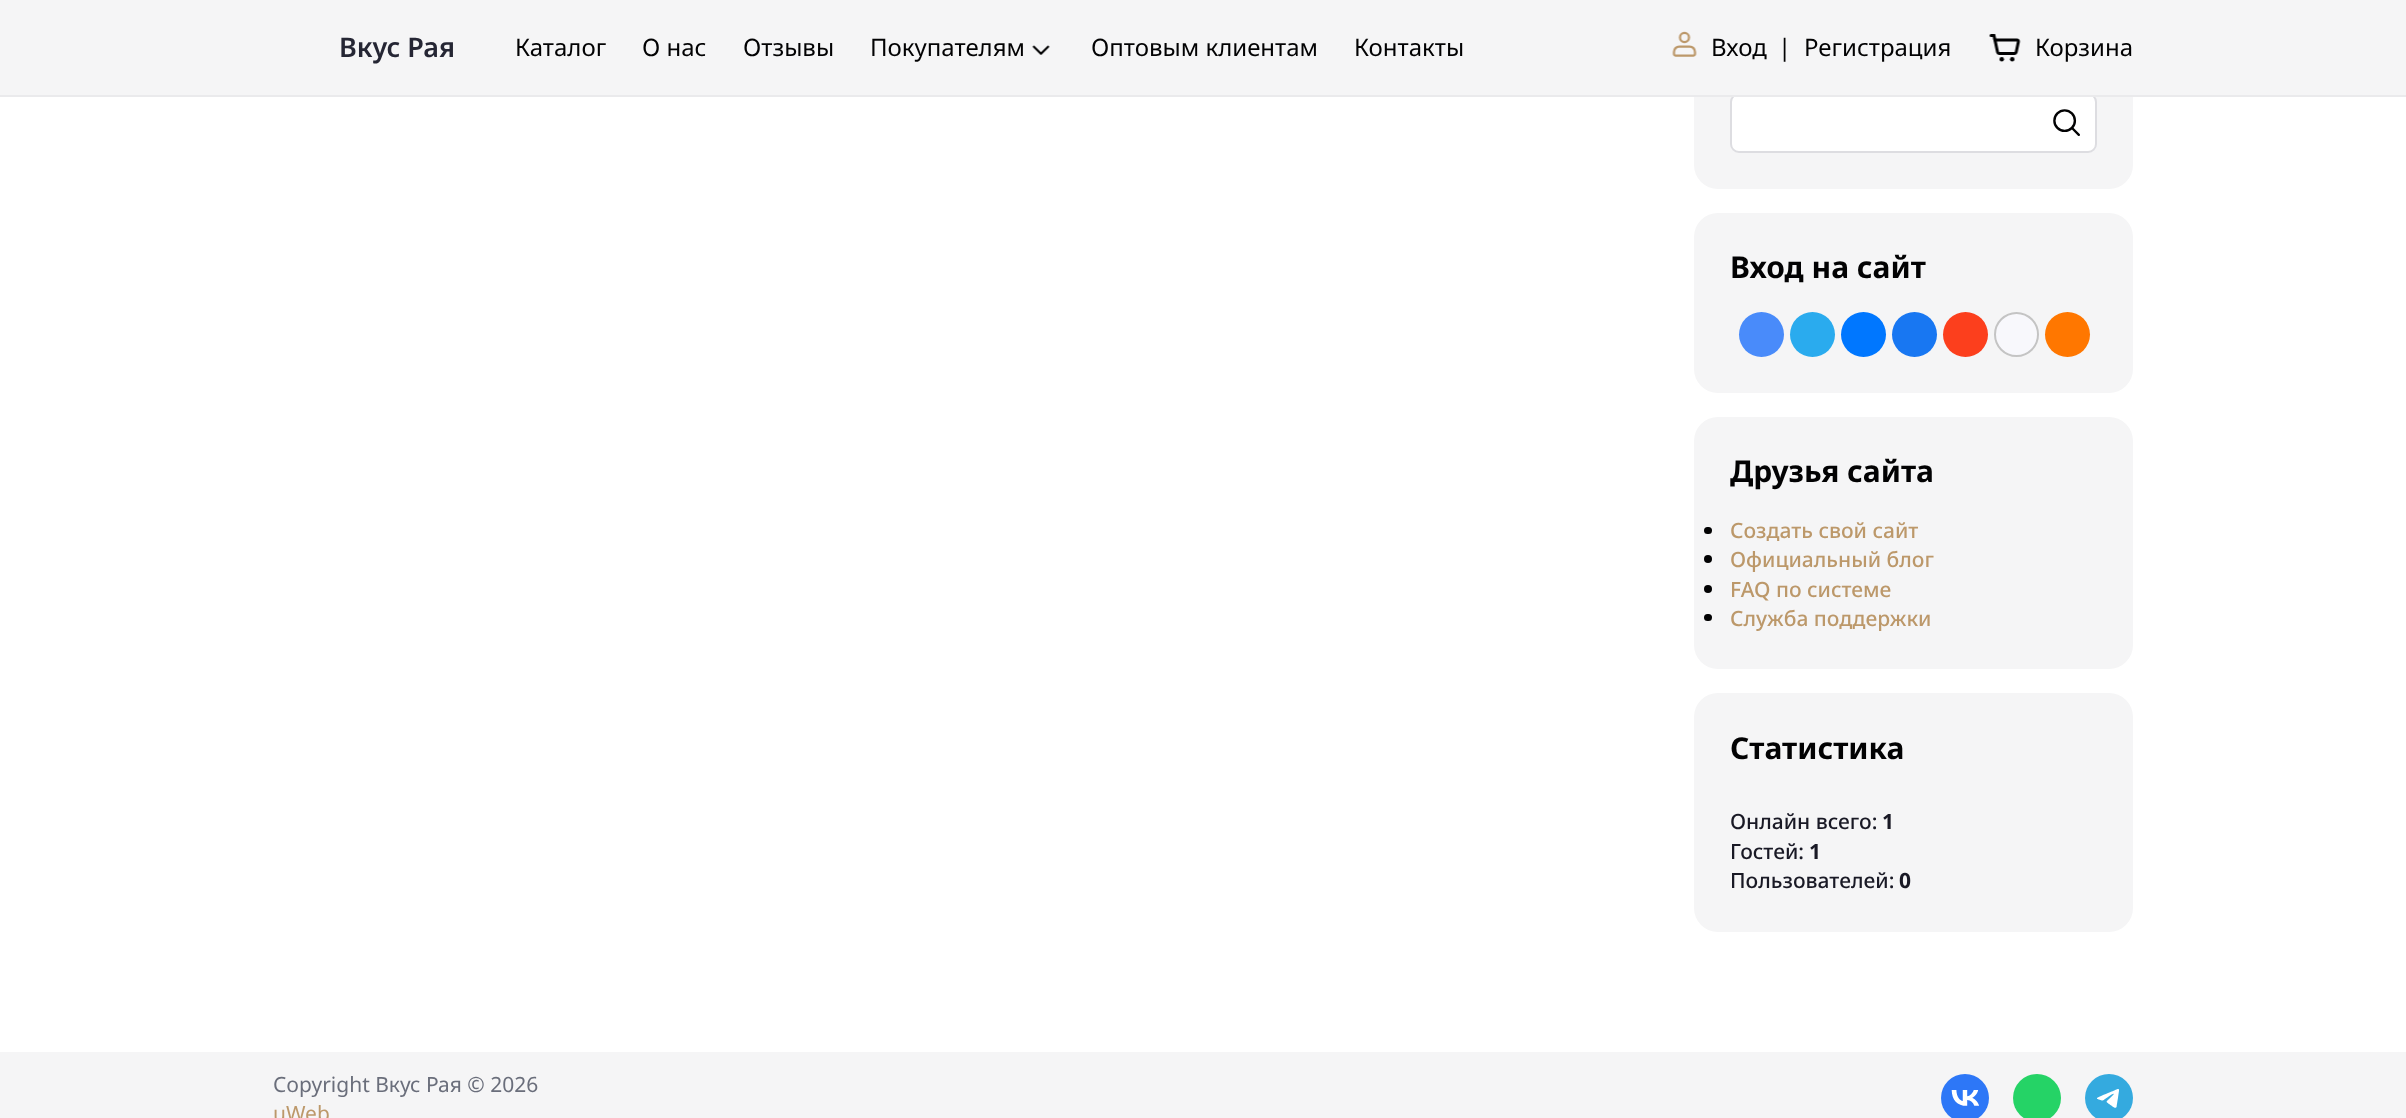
<?xml version="1.0" encoding="UTF-8"?>
<svg xmlns="http://www.w3.org/2000/svg" xmlns:xlink="http://www.w3.org/1999/xlink" width="2406" height="1118">
  <rect width="100%" height="100%" fill="#ffffff" />
  <rect x="1694" y="-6" width="439" height="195" rx="24" fill="#f5f5f6" />
  <rect x="1731" y="94" width="365" height="58" rx="8" fill="#ffffff" stroke="#dddde1" stroke-width="2" />
  <rect width="2406" height="95" fill="#f5f5f6" />
  <rect y="95" width="2406" height="2" fill="#eaeaec" />
  <image x="1032" y="45" width="18" height="10" xlink:href="image1.png" />
  <image x="1672" y="31" width="25" height="26" xlink:href="image2.png" />
  <image x="1989" y="34" width="32" height="28" xlink:href="image3.png" />
  <image x="2053" y="109" width="27" height="27" xlink:href="image4.png" />
  <rect x="1694" y="213" width="439" height="180" rx="24" fill="#f5f5f6" />
  <circle cx="1761.5" cy="334.5" r="22.5" fill="#498bfa" />
  <circle cx="1812.5" cy="334.5" r="22.5" fill="#2aabee" />
  <circle cx="1863.5" cy="334.5" r="22.5" fill="#0077ff" />
  <circle cx="1914.5" cy="334.5" r="22.5" fill="#1877f2" />
  <circle cx="1965.5" cy="334.5" r="22.5" fill="#fc3f1d" />
  <circle cx="2016.5" cy="334.5" r="21.5" fill="#f8f8fc" stroke="#c4c4c4" stroke-width="2" />
  <circle cx="2067.5" cy="334.5" r="22.5" fill="#ff7700" />
  <rect x="1694" y="417" width="439" height="252" rx="24" fill="#f5f5f6" />
  <rect x="1704" y="527" width="8" height="7" rx="3.5" fill="#020203" />
  <circle cx="1708" cy="559" r="4" fill="#020203" />
  <circle cx="1708" cy="589" r="4" fill="#020203" />
  <rect x="1704" y="614" width="8" height="7" rx="3.5" fill="#020203" />
  <rect x="1694" y="693" width="439" height="239" rx="24" fill="#f5f5f6" />
  <rect y="1052" width="2406" height="66" fill="#f5f5f6" />
  <circle cx="1965" cy="1098" r="24" fill="#2d77f7" />
  <image x="1951" y="1090" width="28" height="16" xlink:href="image5.png" />
  <circle cx="2037" cy="1098" r="24" fill="#25d366" />
  <circle cx="2109" cy="1098" r="24" fill="#34aadf" />
  <image x="2097" y="1089" width="22" height="19" xlink:href="image6.png" />
  <text x="339" y="57" style="font-family: Noto Sans; font-size: 27px; font-weight: 600; fill: #252634">Вкус Рая</text>
  <text x="515" y="56" style="font-family: Noto Sans; font-size: 24px; fill: #020203">Каталог</text>
  <text x="642" y="56" style="font-family: Noto Sans; font-size: 24px; fill: #020203">О нас</text>
  <text x="743" y="56" style="font-family: Noto Sans; font-size: 24px; fill: #020203">Отзывы</text>
  <text x="870" y="56" style="font-family: Noto Sans; font-size: 24px; fill: #020203">Покупателям</text>
  <text x="1091" y="56" style="font-family: Noto Sans; font-size: 24px; fill: #020203">Оптовым клиентам</text>
  <text x="1354" y="56" style="font-family: Noto Sans; font-size: 24px; fill: #020203">Контакты</text>
  <text x="1711" y="56" style="font-family: Noto Sans; font-size: 24px; fill: #020203">Вход</text>
  <text x="1778" y="56" style="font-family: Noto Sans; font-size: 24px; fill: #020203">|</text>
  <text x="1804" y="56" style="font-family: Noto Sans; font-size: 24px; fill: #020203">Регистрация</text>
  <text x="2035" y="56" style="font-family: Noto Sans; font-size: 24px; fill: #020203">Корзина</text>
  <text x="1730" y="278" style="font-family: Noto Sans; font-size: 30px; font-weight: bold; fill: #020203">Вход на сайт</text>
  <text x="1730" y="482" style="font-family: Noto Sans; font-size: 30px; font-weight: bold; fill: #020203">Друзья сайта</text>
  <text x="1730" y="538" style="font-family: Noto Sans; font-size: 21px; font-weight: 500; fill: #bc986a">Создать свой сайт</text>
  <text x="1730" y="567" style="font-family: Noto Sans; font-size: 21px; font-weight: 500; fill: #bc986a">Официальный блог</text>
  <text x="1730" y="597" style="font-family: Noto Sans; font-size: 21px; font-weight: 500; fill: #bc986a">FAQ по системе</text>
  <text x="1730" y="626" style="font-family: Noto Sans; font-size: 21px; font-weight: 500; fill: #bc986a">Служба поддержки</text>
  <text x="1730" y="759" style="font-family: Noto Sans; font-size: 30px; font-weight: bold; fill: #020203">Статистика</text>
  <text x="1730" y="829" style="font-family: Noto Sans; font-size: 21px; font-weight: 500; fill: #191925">Онлайн всего:</text>
  <text x="1882" y="829" style="font-family: Noto Sans; font-size: 21px; font-weight: bold; fill: #191925">1</text>
  <text x="1730" y="859" style="font-family: Noto Sans; font-size: 21px; font-weight: 500; fill: #191925">Гостей:</text>
  <text x="1809" y="859" style="font-family: Noto Sans; font-size: 21px; font-weight: bold; fill: #191925">1</text>
  <text x="1730" y="888" style="font-family: Noto Sans; font-size: 21px; font-weight: 500; fill: #191925">Пользователей:</text>
  <text x="1899" y="888" style="font-family: Noto Sans; font-size: 21px; font-weight: bold; fill: #191925">0</text>
  <text x="273" y="1092" style="font-family: Noto Sans; font-size: 21px; fill: #6a6e7b">Copyright Вкус Рая © 2026</text>
  <text x="273" y="1121" style="font-family: Noto Sans; font-size: 21px; fill: #bc986a">uWeb</text>
</svg>
